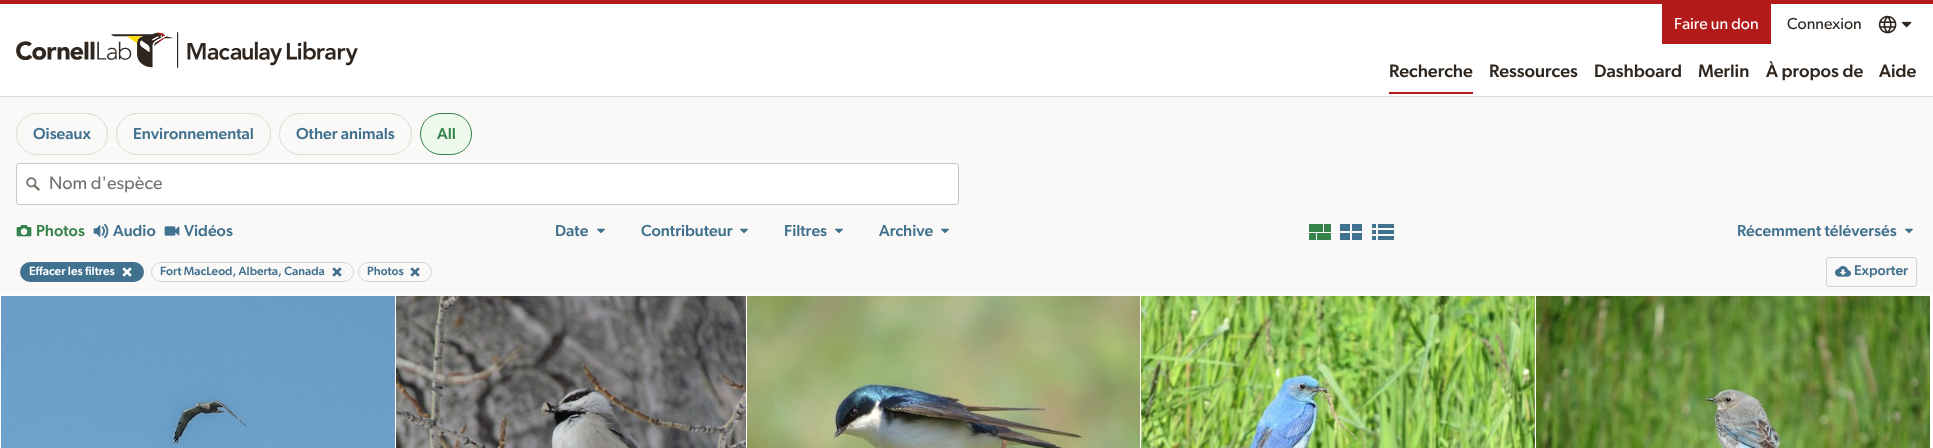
<?xml version="1.0" encoding="UTF-8"?>
<svg xmlns="http://www.w3.org/2000/svg" xmlns:xlink="http://www.w3.org/1999/xlink" width="1933" height="448">
  <rect width="100%" height="100%" fill="#ffffff" />
  <rect width="1933" height="4" fill="#b31b1b" />
  <rect y="96" width="1933" height="1" fill="#dbdbd9" />
  <image x="16" y="32" width="342" height="36" xlink:href="image1.png" />
  <rect x="1662" y="4" width="109" height="40" fill="#b31b1b" />
  <image x="1878" y="15" width="19" height="19" xlink:href="image2.png" />
  <image x="1901" y="21" width="11" height="7" xlink:href="image3.png" />
  <rect x="1389" y="92" width="84" height="2" fill="#b31b1b" />
  <rect y="97" width="1933" height="198" fill="#faf9f7" />
  <rect x="16.5" y="113.5" width="91" height="41" rx="20.5" fill="none" stroke="#dddcd5" />
  <rect x="116.5" y="113.5" width="154" height="41" rx="20.5" fill="none" stroke="#dddcd5" />
  <rect x="279.5" y="113.5" width="132" height="41" rx="20.5" fill="none" stroke="#dddcd5" />
  <rect x="420.5" y="113.5" width="51" height="41" rx="20.5" fill="#ecf9eb" stroke="#36824b" />
  <rect x="16.5" y="163.5" width="942" height="41" rx="2.5" fill="#ffffff" stroke="#c8c7c0" />
  <image x="26" y="177" width="14" height="14" xlink:href="image4.png" />
  <image x="16" y="225" width="16" height="12" xlink:href="image5.png" />
  <image x="93" y="223" width="16" height="16" xlink:href="image6.png" />
  <image x="164" y="226" width="16" height="10" xlink:href="image7.png" />
  <image x="597" y="228" width="8" height="6" xlink:href="image8.png" />
  <image x="740" y="228" width="8" height="6" xlink:href="image8.png" />
  <image x="835" y="228" width="8" height="6" xlink:href="image8.png" />
  <image x="941" y="228" width="8" height="6" xlink:href="image8.png" />
  <image x="1309" y="224" width="22" height="16" xlink:href="image9.png" />
  <image x="1340" y="224" width="22" height="16" xlink:href="image10.png" />
  <image x="1372" y="224" width="22" height="16" xlink:href="image11.png" />
  <image x="1905" y="228" width="8" height="6" xlink:href="image8.png" />
  <rect x="20" y="262" width="124" height="20" rx="10" fill="#40718f" />
  <image x="122" y="267" width="10" height="10" xlink:href="image12.png" />
  <rect x="151.5" y="262.5" width="202" height="19" rx="9.5" fill="none" stroke="#ccd7dd" />
  <image x="332" y="267" width="10" height="10" xlink:href="image13.png" />
  <rect x="358.5" y="262.5" width="73" height="19" rx="9.5" fill="none" stroke="#ccd7dd" />
  <image x="410" y="267" width="10" height="10" xlink:href="image13.png" />
  <rect x="1826.5" y="257.5" width="90" height="29" rx="2.5" fill="none" stroke="#ccd7dd" />
  <image x="1835" y="266" width="16" height="11" xlink:href="image14.png" />
  <image x="1" y="296" width="394" height="152" xlink:href="image15.png" />
  <image x="396" y="296" width="350" height="152" xlink:href="image16.png" />
  <image x="747" y="296" width="393" height="152" xlink:href="image17.png" />
  <image x="1141" y="296" width="394" height="152" xlink:href="image18.png" />
  <image x="1536" y="296" width="394" height="152" xlink:href="image19.png" />
  <text x="1674" y="29" style="font-family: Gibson; font-size: 16px; fill: #ffffff">Faire un don</text>
  <text x="1787" y="29" style="font-family: Gibson; font-size: 16px; fill: #2e261f">Connexion</text>
  <text x="1389" y="77" style="font-family: Gibson; font-size: 18px; font-weight: 500; fill: #2e261f">Recherche</text>
  <text x="1489" y="77" style="font-family: Gibson; font-size: 18px; font-weight: 500; fill: #2e261f">Ressources</text>
  <text x="1594" y="77" style="font-family: Gibson; font-size: 18px; font-weight: 500; fill: #2e261f">Dashboard</text>
  <text x="1698" y="77" style="font-family: Gibson; font-size: 18px; font-weight: 500; fill: #2e261f">Merlin</text>
  <text x="1766" y="77" style="font-family: Gibson; font-size: 18px; font-weight: 500; fill: #2e261f">À propos de</text>
  <text x="1879" y="77" style="font-family: Gibson; font-size: 18px; font-weight: 500; fill: #2e261f">Aide</text>
  <text x="33" y="139" style="font-family: Gibson; font-size: 16px; font-weight: 500; fill: #40718f">Oiseaux</text>
  <text x="133" y="139" style="font-family: Gibson; font-size: 16px; font-weight: 500; fill: #40718f">Environnemental</text>
  <text x="296" y="139" style="font-family: Gibson; font-size: 16px; font-weight: 500; fill: #40718f">Other animals</text>
  <text x="437" y="139" style="font-family: Gibson; font-size: 16px; font-weight: 500; fill: #36824b">All</text>
  <text x="49" y="189" style="font-family: Gibson; font-size: 18px; fill: #757575">Nom d'espèce</text>
  <text x="36" y="236" style="font-family: Gibson; font-size: 16px; font-weight: 500; fill: #36824b">Photos</text>
  <text x="113" y="236" style="font-family: Gibson; font-size: 16px; font-weight: 500; fill: #40718f">Audio</text>
  <text x="184" y="236" style="font-family: Gibson; font-size: 16px; font-weight: 500; fill: #40718f">Vidéos</text>
  <text x="555" y="236" style="font-family: Gibson; font-size: 16px; font-weight: 500; fill: #40718f">Date</text>
  <text x="641" y="236" style="font-family: Gibson; font-size: 16px; font-weight: 500; fill: #40718f">Contributeur</text>
  <text x="784" y="236" style="font-family: Gibson; font-size: 16px; font-weight: 500; fill: #40718f">Filtres</text>
  <text x="879" y="236" style="font-family: Gibson; font-size: 16px; font-weight: 500; fill: #40718f">Archive</text>
  <text x="1737" y="236" style="font-family: Gibson; font-size: 16px; font-weight: 500; fill: #40718f">Récemment téléversés</text>
  <text x="29" y="275" style="font-family: Gibson; font-size: 12px; font-weight: 500; fill: #ffffff">Effacer les filtres</text>
  <text x="160" y="275" style="font-family: Gibson; font-size: 12px; font-weight: 500; fill: #40718f">Fort MacLeod, Alberta, Canada</text>
  <text x="367" y="275" style="font-family: Gibson; font-size: 12px; font-weight: 500; fill: #40718f">Photos</text>
  <text x="1854" y="275" style="font-family: Gibson; font-size: 14px; font-weight: 500; fill: #40718f">Exporter</text>
</svg>
